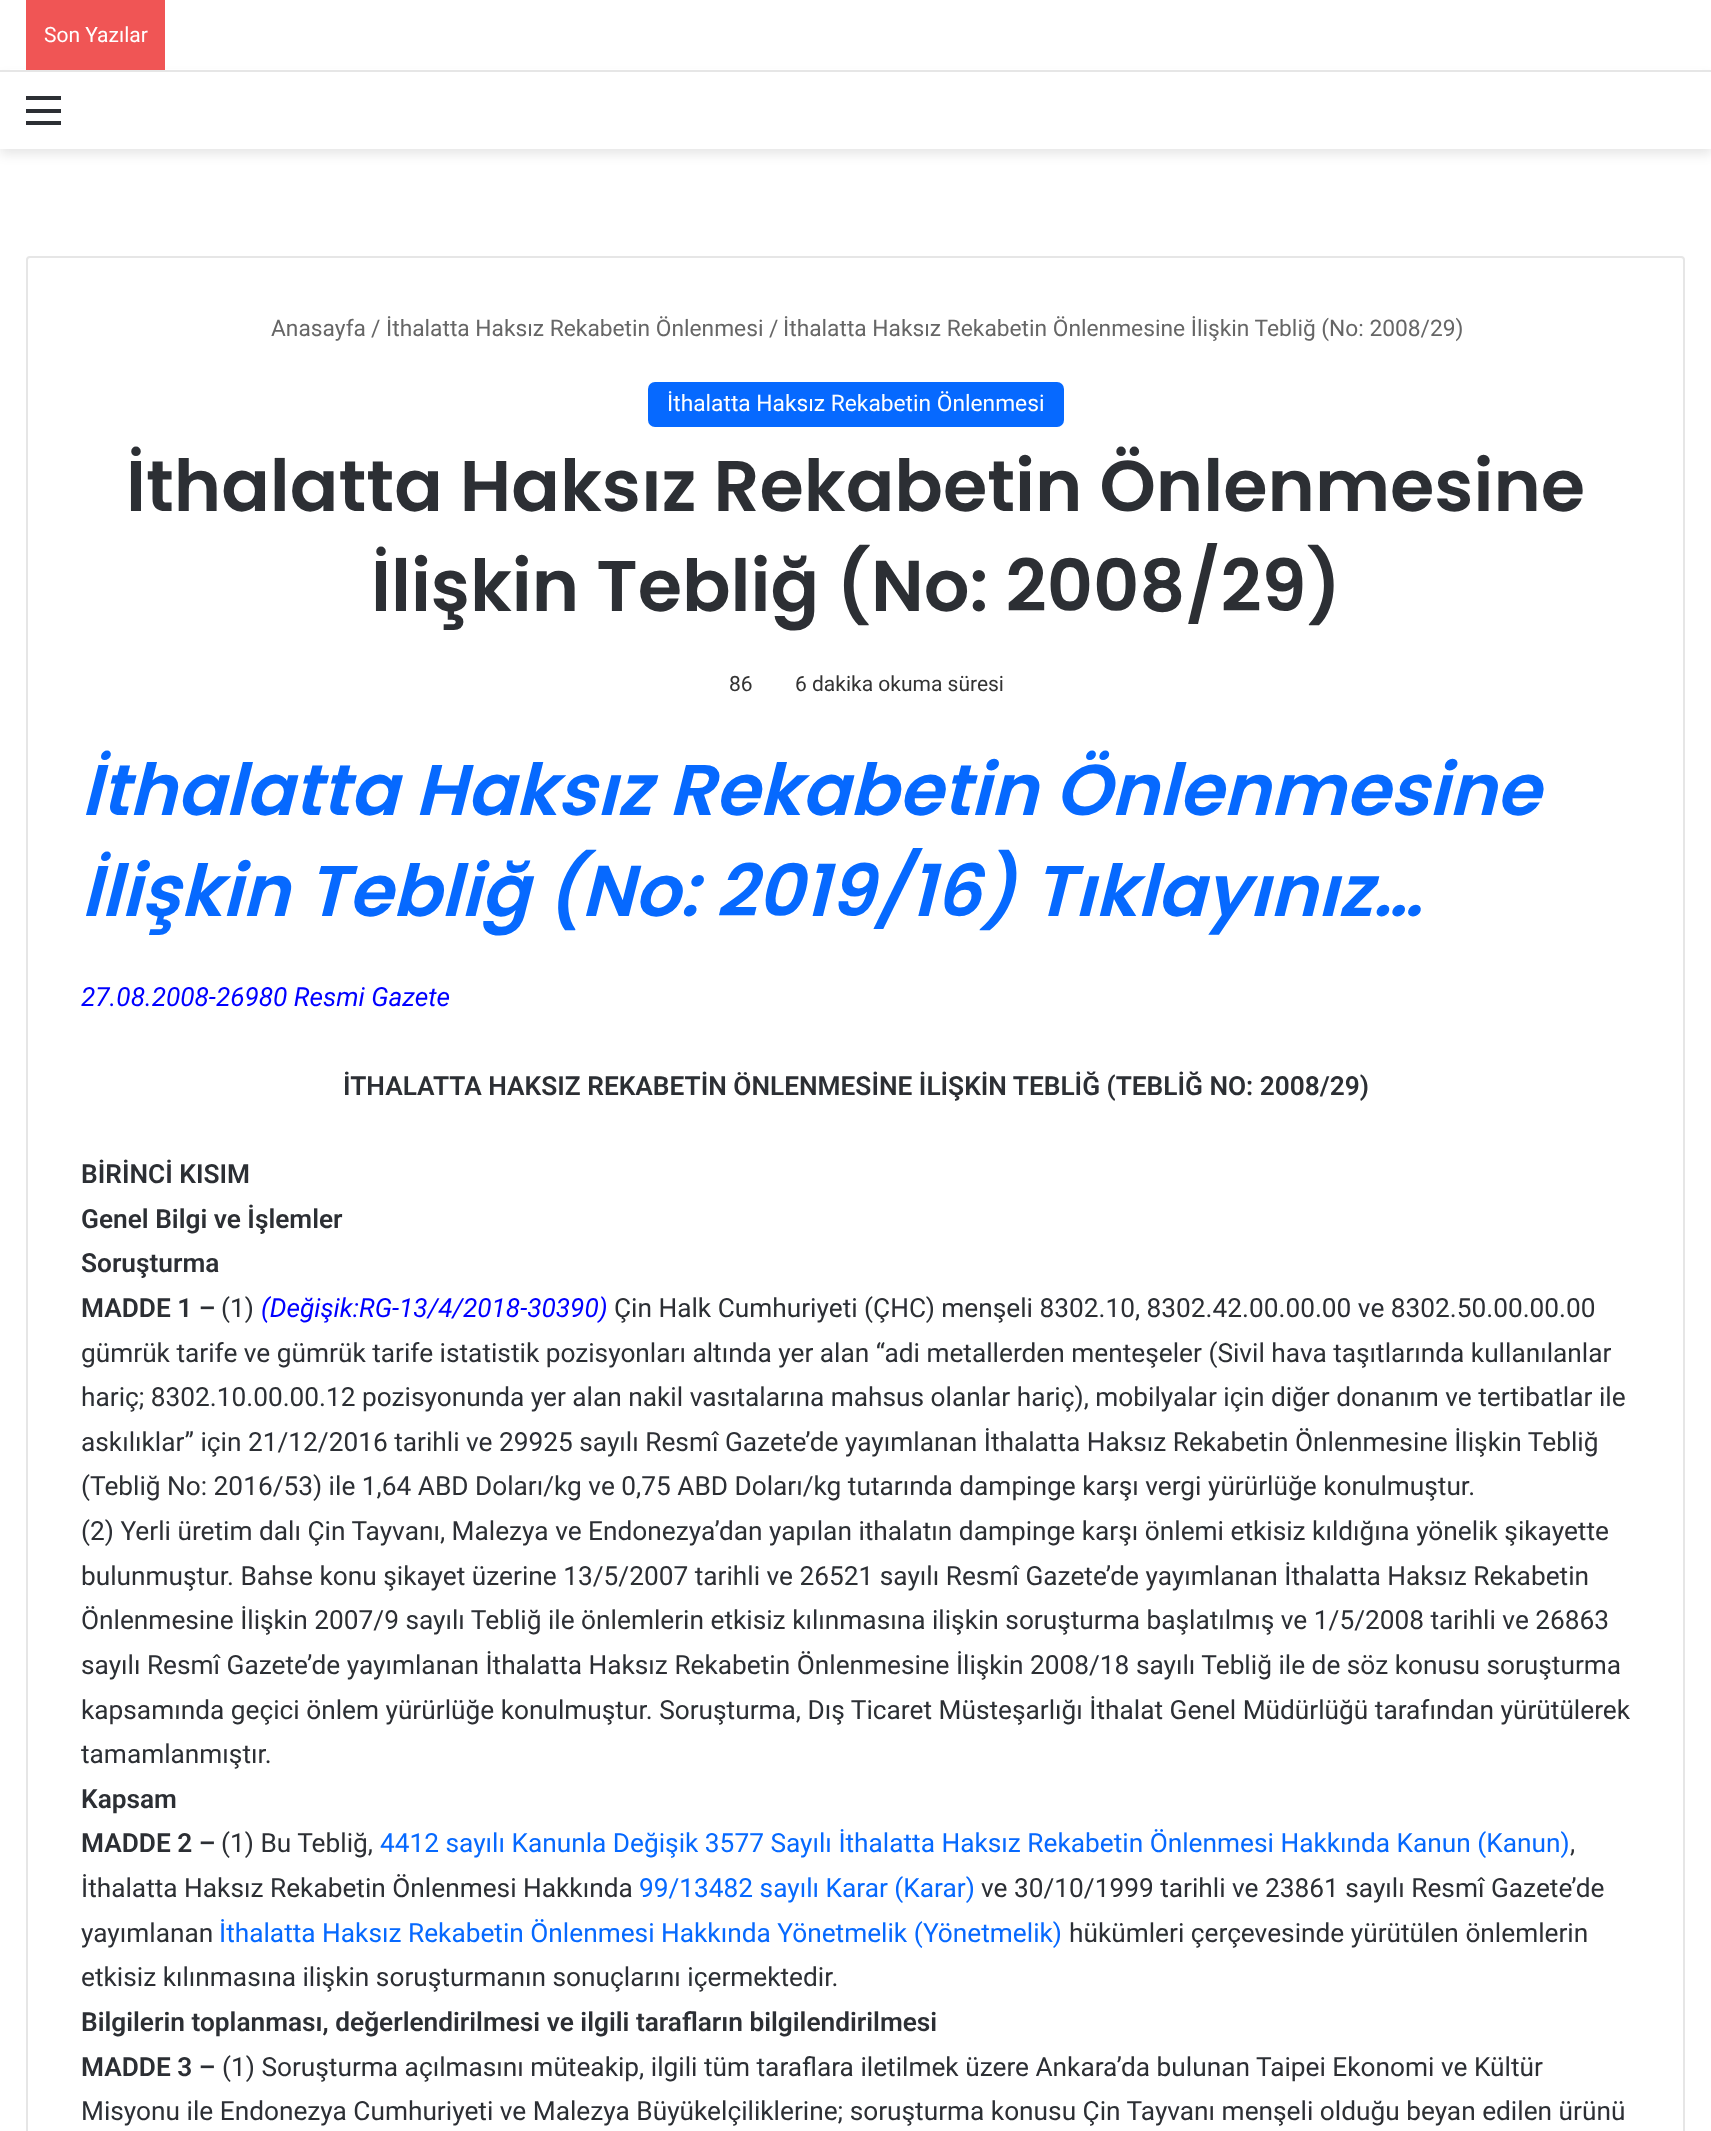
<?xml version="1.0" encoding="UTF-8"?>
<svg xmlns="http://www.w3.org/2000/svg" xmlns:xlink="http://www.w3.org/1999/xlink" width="1711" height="2131">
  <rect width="100%" height="100%" fill="#ffffff" />
  <rect y="77" width="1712" height="77" fill="#000000" fill-opacity="0.1" filter="blur(6px)" />
  <rect x="10" y="69" width="1692" height="1" fill="#ffffff" />
  <rect y="70" width="1711" height="2" fill="#e6e6e6" />
  <rect x="26" width="139" height="70" fill="#f05555" />
  <rect y="72" width="1711" height="77" fill="#ffffff" />
  <rect x="26" y="109" width="35" height="4" fill="#2c2f34" />
  <rect x="26" y="96" width="35" height="4" fill="#2c2f34" />
  <rect x="26" y="121" width="35" height="4" fill="#2c2f34" />
  <rect x="27" y="257" width="1657" height="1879" rx="3" fill="none" stroke="#e6e6e6" stroke-width="2" />
  <rect x="648" y="382" width="416" height="45" rx="7" fill="#0669ff" />
  <text x="44" y="42" style="font-family: Roboto; font-size: 21px; fill: #ffffff">Son Yazılar</text>
  <text x="271" y="336" style="font-family: Roboto; font-size: 22.75px; fill: #666666">Anasayfa</text>
  <text x="371" y="336" style="font-family: Roboto; font-size: 22.75px; fill: #666666">/</text>
  <text x="386" y="336" style="font-family: Roboto; font-size: 22.75px; fill: #666666">İthalatta Haksız Rekabetin Önlenmesi</text>
  <text x="769" y="336" style="font-family: Roboto; font-size: 22.75px; fill: #666666">/</text>
  <text x="783" y="336" style="font-family: Roboto; font-size: 22.75px; fill: #666666">İthalatta Haksız Rekabetin Önlenmesine İlişkin Tebliğ (No: 2008/29)</text>
  <text x="667" y="411" style="font-family: Roboto; font-size: 22.75px; fill: #ffffff">İthalatta Haksız Rekabetin Önlenmesi</text>
  <text x="126" y="511" style="font-family: Poppins; font-size: 71.75px; font-weight: 600; fill: #2c2f34">İthalatta Haksız Rekabetin Önlenmesine</text>
  <text x="371" y="611" style="font-family: Poppins; font-size: 71.75px; font-weight: 600; fill: #2c2f34">İlişkin Tebliğ (No: 2008/29)</text>
  <text x="729" y="691" style="font-family: Roboto; font-size: 21px; fill: #333333">86</text>
  <text x="795" y="691" style="font-family: Roboto; font-size: 21px; fill: #333333">6 dakika okuma süresi</text>
  <text x="81" y="815" style="font-family: Poppins; font-size: 71.75px; font-weight: 600; font-style: italic; fill: #0669ff">İthalatta Haksız Rekabetin Önlenmesine</text>
  <text x="81" y="916" style="font-family: Poppins; font-size: 71.75px; font-weight: 600; font-style: italic; fill: #0669ff">İlişkin Tebliğ (No: 2019/16) Tıklayınız…</text>
  <text x="81" y="1006" style="font-family: Roboto; font-size: 26.25px; font-style: italic; fill: #0000ff">27.08.2008-26980 Resmi Gazete</text>
  <text x="343" y="1095" style="font-family: Roboto; font-size: 26.25px; font-weight: 600; fill: #2c2f34">İTHALATTA HAKSIZ REKABETİN ÖNLENMESİNE İLİŞKİN TEBLİĞ (TEBLİĞ NO: 2008/29)</text>
  <text x="81" y="1183" style="font-family: Roboto; font-size: 26.25px; font-weight: 600; fill: #2c2f34">BİRİNCİ KISIM</text>
  <text x="81" y="1228" style="font-family: Roboto; font-size: 26.25px; font-weight: 600; fill: #2c2f34">Genel Bilgi ve İşlemler</text>
  <text x="81" y="1272" style="font-family: Roboto; font-size: 26.25px; font-weight: 600; fill: #2c2f34">Soruşturma</text>
  <text x="81" y="1317" style="font-family: Roboto; font-size: 26.25px; font-weight: 600; fill: #2c2f34">MADDE 1 –</text>
  <text x="221" y="1317" style="font-family: Roboto; font-size: 26.25px; fill: #2c2f34">(1)</text>
  <text x="261" y="1317" style="font-family: Roboto; font-size: 26.25px; font-style: italic; fill: #0000ff">(Değişik:RG-13/4/2018-30390)</text>
  <text x="614" y="1317" style="font-family: Roboto; font-size: 26.25px; fill: #2c2f34">Çin Halk Cumhuriyeti (ÇHC) menşeli 8302.10, 8302.42.00.00.00 ve 8302.50.00.00.00</text>
  <text x="81" y="1362" style="font-family: Roboto; font-size: 26.25px; fill: #2c2f34">gümrük tarife ve gümrük tarife istatistik pozisyonları altında yer alan “adi metallerden menteşeler (Sivil hava taşıtlarında kullanılanlar</text>
  <text x="81" y="1406" style="font-family: Roboto; font-size: 26.25px; fill: #2c2f34">hariç; 8302.10.00.00.12 pozisyonunda yer alan nakil vasıtalarına mahsus olanlar hariç), mobilyalar için diğer donanım ve tertibatlar ile</text>
  <text x="81" y="1451" style="font-family: Roboto; font-size: 26.25px; fill: #2c2f34">askılıklar” için 21/12/2016 tarihli ve 29925 sayılı Resmî Gazete’de yayımlanan İthalatta Haksız Rekabetin Önlenmesine İlişkin Tebliğ</text>
  <text x="81" y="1495" style="font-family: Roboto; font-size: 26.25px; fill: #2c2f34">(Tebliğ No: 2016/53) ile 1,64 ABD Doları/kg ve 0,75 ABD Doları/kg tutarında dampinge karşı vergi yürürlüğe konulmuştur.</text>
  <text x="81" y="1540" style="font-family: Roboto; font-size: 26.25px; fill: #2c2f34">(2) Yerli üretim dalı Çin Tayvanı, Malezya ve Endonezya’dan yapılan ithalatın dampinge karşı önlemi etkisiz kıldığına yönelik şikayette</text>
  <text x="81" y="1585" style="font-family: Roboto; font-size: 26.25px; fill: #2c2f34">bulunmuştur. Bahse konu şikayet üzerine 13/5/2007 tarihli ve 26521 sayılı Resmî Gazete’de yayımlanan İthalatta Haksız Rekabetin</text>
  <text x="81" y="1629" style="font-family: Roboto; font-size: 26.25px; fill: #2c2f34">Önlenmesine İlişkin 2007/9 sayılı Tebliğ ile önlemlerin etkisiz kılınmasına ilişkin soruşturma başlatılmış ve 1/5/2008 tarihli ve 26863</text>
  <text x="81" y="1674" style="font-family: Roboto; font-size: 26.25px; fill: #2c2f34">sayılı Resmî Gazete’de yayımlanan İthalatta Haksız Rekabetin Önlenmesine İlişkin 2008/18 sayılı Tebliğ ile de söz konusu soruşturma</text>
  <text x="81" y="1719" style="font-family: Roboto; font-size: 26.25px; fill: #2c2f34">kapsamında geçici önlem yürürlüğe konulmuştur. Soruşturma, Dış Ticaret Müsteşarlığı İthalat Genel Müdürlüğü tarafından yürütülerek</text>
  <text x="81" y="1763" style="font-family: Roboto; font-size: 26.25px; fill: #2c2f34">tamamlanmıştır.</text>
  <text x="81" y="1808" style="font-family: Roboto; font-size: 26.25px; font-weight: 600; fill: #2c2f34">Kapsam</text>
  <text x="81" y="1852" style="font-family: Roboto; font-size: 26.25px; font-weight: 600; fill: #2c2f34">MADDE 2 –</text>
  <text x="221" y="1852" style="font-family: Roboto; font-size: 26.25px; fill: #2c2f34">(1) Bu Tebliğ,</text>
  <text x="380" y="1852" style="font-family: Roboto; font-size: 26.25px; fill: #0669ff">4412 sayılı Kanunla Değişik 3577 Sayılı İthalatta Haksız Rekabetin Önlenmesi Hakkında Kanun (Kanun)</text>
  <text x="1570" y="1852" style="font-family: Roboto; font-size: 26.25px; fill: #2c2f34">,</text>
  <text x="81" y="1897" style="font-family: Roboto; font-size: 26.25px; fill: #2c2f34">İthalatta Haksız Rekabetin Önlenmesi Hakkında</text>
  <text x="639" y="1897" style="font-family: Roboto; font-size: 26.25px; fill: #0669ff">99/13482 sayılı Karar (Karar)</text>
  <text x="981" y="1897" style="font-family: Roboto; font-size: 26.25px; fill: #2c2f34">ve 30/10/1999 tarihli ve 23861 sayılı Resmî Gazete’de</text>
  <text x="81" y="1942" style="font-family: Roboto; font-size: 26.25px; fill: #2c2f34">yayımlanan</text>
  <text x="219" y="1942" style="font-family: Roboto; font-size: 26.25px; fill: #0669ff">İthalatta Haksız Rekabetin Önlenmesi Hakkında Yönetmelik (Yönetmelik)</text>
  <text x="1069" y="1942" style="font-family: Roboto; font-size: 26.25px; fill: #2c2f34">hükümleri çerçevesinde yürütülen önlemlerin</text>
  <text x="81" y="1986" style="font-family: Roboto; font-size: 26.25px; fill: #2c2f34">etkisiz kılınmasına ilişkin soruşturmanın sonuçlarını içermektedir.</text>
  <text x="81" y="2031" style="font-family: Roboto; font-size: 26.25px; font-weight: 600; fill: #2c2f34">Bilgilerin toplanması, değerlendirilmesi ve ilgili tarafların bilgilendirilmesi</text>
  <text x="81" y="2076" style="font-family: Roboto; font-size: 26.25px; font-weight: 600; fill: #2c2f34">MADDE 3 –</text>
  <text x="222" y="2076" style="font-family: Roboto; font-size: 26.25px; fill: #2c2f34">(1) Soruşturma açılmasını müteakip, ilgili tüm taraflara iletilmek üzere Ankara’da bulunan Taipei Ekonomi ve Kültür</text>
  <text x="81" y="2120" style="font-family: Roboto; font-size: 26.25px; fill: #2c2f34">Misyonu ile Endonezya Cumhuriyeti ve Malezya Büyükelçiliklerine; soruşturma konusu Çin Tayvanı menşeli olduğu beyan edilen ürünü</text>
</svg>
